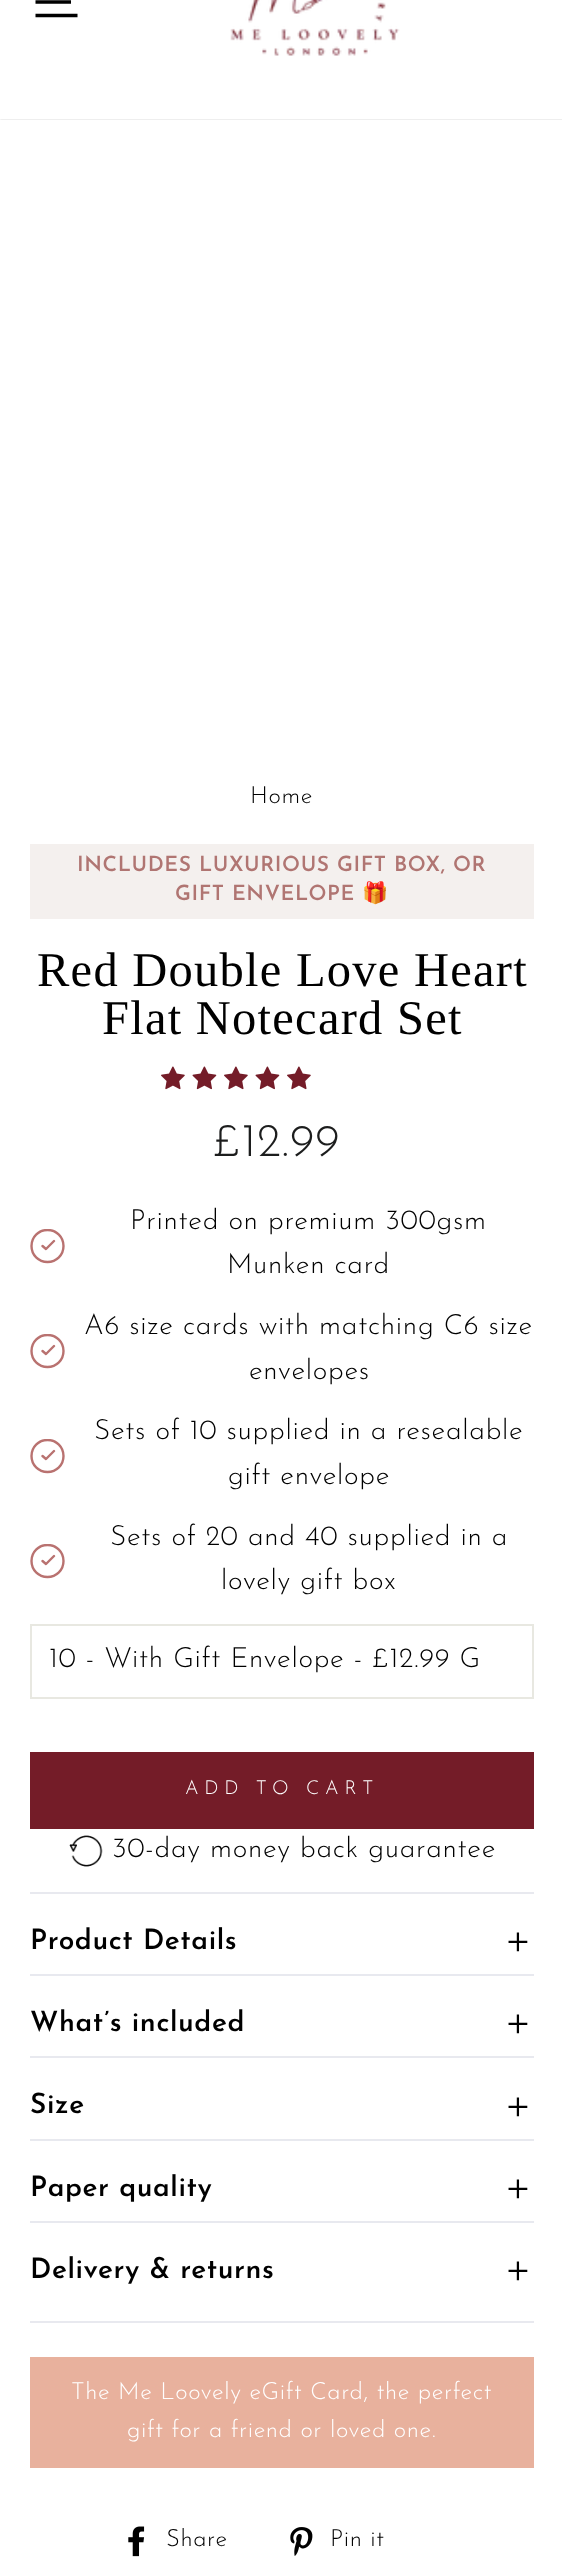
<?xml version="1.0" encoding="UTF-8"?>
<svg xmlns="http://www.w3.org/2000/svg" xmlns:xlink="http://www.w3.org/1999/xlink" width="562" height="2567">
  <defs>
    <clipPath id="clip1"><rect x="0" y="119" width="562" height="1" /></clipPath>
    <clipPath id="clip2"><rect x="30" y="1229" width="37" height="35" /></clipPath>
    <clipPath id="clip3"><rect x="30" y="1334" width="37" height="35" /></clipPath>
    <clipPath id="clip4"><rect x="30" y="1439" width="37" height="35" /></clipPath>
    <clipPath id="clip5"><rect x="30" y="1544" width="37" height="35" /></clipPath>
  </defs>
  <rect width="100%" height="100%" fill="#ffffff" />
  <g clip-path="url(#clip1)">
    <rect y="-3" width="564" height="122" fill="#000000" fill-opacity="0.2" filter="blur(1px)" />
  </g>
  <path d="M 35.5 -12 h 42 m -42 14 h 35.5 m -35.5 13.5 h 42" fill="none" stroke="#000000" stroke-width="3.3" />
  <image x="230" y="0" width="170" height="56" xlink:href="image1.png" />
  <rect x="30" y="844" width="504" height="75" fill="#f4f0ee" />
  <image x="161" y="1066" width="24" height="24" xlink:href="image2.png" />
  <image x="192" y="1066" width="25" height="24" xlink:href="image3.png" />
  <image x="224" y="1066" width="24" height="24" xlink:href="image2.png" />
  <image x="255" y="1066" width="25" height="24" xlink:href="image3.png" />
  <image x="287" y="1066" width="24" height="24" xlink:href="image2.png" />
  <g clip-path="url(#clip2)">
    <path d="M 42.5 1246 l 3.5 3 l 8 -8 m 9.5 5 c 0 9 -7 16 -16 16 c -9 0 -16 -7 -16 -16 c 0 -9 7 -16 16 -16 c 9 0 16 7 16 16 z" fill="none" stroke="#b97270" stroke-width="2.4" stroke-linecap="round" stroke-linejoin="round" />
  </g>
  <g clip-path="url(#clip3)">
    <path d="M 42.5 1351 l 3.5 3 l 8 -8 m 9.5 5 c 0 9 -7 16 -16 16 c -9 0 -16 -7 -16 -16 c 0 -9 7 -16 16 -16 c 9 0 16 7 16 16 z" fill="none" stroke="#b97270" stroke-width="2.4" stroke-linecap="round" stroke-linejoin="round" />
  </g>
  <g clip-path="url(#clip4)">
    <path d="M 42.5 1456 l 3.5 3 l 8 -8 m 9.5 5 c 0 9 -7 16 -16 16 c -9 0 -16 -7 -16 -16 c 0 -9 7 -16 16 -16 c 9 0 16 7 16 16 z" fill="none" stroke="#b97270" stroke-width="2.4" stroke-linecap="round" stroke-linejoin="round" />
  </g>
  <g clip-path="url(#clip5)">
    <path d="M 42.5 1561 l 3.5 3 l 8 -8 m 9.5 5 c 0 9 -7 16 -16 16 c -9 0 -16 -7 -16 -16 c 0 -9 7 -16 16 -16 c 9 0 16 7 16 16 z" fill="none" stroke="#b97270" stroke-width="2.4" stroke-linecap="round" stroke-linejoin="round" />
  </g>
  <rect x="31" y="1625" width="502" height="73" fill="none" stroke="#e8e8e1" stroke-width="2" />
  <rect x="30" y="1752" width="504" height="77" fill="#741c28" />
  <image x="69" y="1835" width="34" height="32" xlink:href="image4.png" />
  <rect x="30" y="2321" width="504" height="2" fill="#e8e9ef" />
  <rect x="30" y="1892" width="504" height="2" fill="#e8e9ef" />
  <rect x="30" y="1974" width="504" height="2" fill="#e8e9ef" />
  <rect x="30" y="2056" width="504" height="2" fill="#e8e9ef" />
  <rect x="30" y="2139" width="504" height="2" fill="#e8e9ef" />
  <rect x="30" y="2221" width="504" height="2" fill="#e8e9ef" />
  <rect x="30" y="2357" width="504" height="111" fill="#e8b19d" />
  <image x="128" y="2526" width="17" height="31" xlink:href="image5.png" />
  <image x="290" y="2527" width="23" height="29" xlink:href="image6.png" />
  <text x="250" y="803" style="font-family: Josefin Sans; font-size: 23.75px; font-weight: 300; letter-spacing: 0.6px; fill: #000000">Home</text>
  <text x="77" y="871" style="font-family: Josefin Sans; font-size: 21px; font-weight: 600; letter-spacing: 0.6px; fill: #b07572">INCLUDES LUXURIOUS GIFT BOX, OR</text>
  <text x="175" y="900" style="font-family: Josefin Sans; font-size: 21px; font-weight: 600; letter-spacing: 0.6px; fill: #b07572">GIFT ENVELOPE</text>
  <text x="362" y="900" style="font-family: Noto Color Emoji; font-size: 21px; font-weight: bold; letter-spacing: 0.6px; fill: #b07572">🎁</text>
  <text x="37" y="986" style="font-family: Liberation Serif; font-size: 48.5px; letter-spacing: 1.25px; fill: #000000">Red Double Love Heart</text>
  <text x="102" y="1034" style="font-family: Liberation Serif; font-size: 48.5px; letter-spacing: 1.25px; fill: #000000">Flat Notecard Set</text>
  <text x="213" y="1156" style="font-family: Josefin Sans; font-size: 47px; font-weight: 300; letter-spacing: 0.6px; fill: #1c1d1d">£12.99</text>
  <text x="130" y="1229" style="font-family: Josefin Sans; font-size: 28px; font-weight: 300; letter-spacing: 0.7px; fill: #000000">Printed on premium 300gsm</text>
  <text x="227" y="1273" style="font-family: Josefin Sans; font-size: 28px; font-weight: 300; letter-spacing: 0.7px; fill: #000000">Munken card</text>
  <text x="84" y="1334" style="font-family: Josefin Sans; font-size: 28px; font-weight: 300; letter-spacing: 0.7px; fill: #000000">A6 size cards with matching C6 size</text>
  <text x="249" y="1379" style="font-family: Josefin Sans; font-size: 28px; font-weight: 300; letter-spacing: 0.7px; fill: #000000">envelopes</text>
  <text x="94" y="1439" style="font-family: Josefin Sans; font-size: 28px; font-weight: 300; letter-spacing: 0.7px; fill: #000000">Sets of 10 supplied in a resealable</text>
  <text x="228" y="1484" style="font-family: Josefin Sans; font-size: 28px; font-weight: 300; letter-spacing: 0.7px; fill: #000000">gift envelope</text>
  <text x="110" y="1545" style="font-family: Josefin Sans; font-size: 28px; font-weight: 300; letter-spacing: 0.7px; fill: #000000">Sets of 20 and 40 supplied in a</text>
  <text x="221" y="1589" style="font-family: Josefin Sans; font-size: 28px; font-weight: 300; letter-spacing: 0.7px; fill: #000000">lovely gift box</text>
  <text x="49" y="1667" style="font-family: Josefin Sans; font-size: 28px; font-weight: 300; letter-spacing: 0.7px; fill: #000000">10 - With Gift Envelope - £12.99 G</text>
  <text x="185" y="1794" style="font-family: Josefin Sans; font-size: 19.25px; font-weight: 300; letter-spacing: 5.75px; fill: #ffffff">ADD TO CART</text>
  <text x="112" y="1857" style="font-family: Josefin Sans; font-size: 28px; font-weight: 300; letter-spacing: 0.7px; fill: #000000">30-day money back guarantee</text>
  <text x="30" y="1949" style="font-family: Josefin Sans; font-size: 28px; font-weight: 600; letter-spacing: 0.6px; fill: #000000">Product Details</text>
  <text x="504" y="1954" style="font-family: Josefin Sans; font-size: 52px; font-weight: 300; letter-spacing: 0.6px; fill: #000000">+</text>
  <text x="30" y="2031" style="font-family: Josefin Sans; font-size: 28px; font-weight: 600; letter-spacing: 0.6px; fill: #000000">What’s included</text>
  <text x="504" y="2036" style="font-family: Josefin Sans; font-size: 52px; font-weight: 300; letter-spacing: 0.6px; fill: #000000">+</text>
  <text x="30" y="2113" style="font-family: Josefin Sans; font-size: 28px; font-weight: 600; letter-spacing: 0.6px; fill: #000000">Size</text>
  <text x="504" y="2119" style="font-family: Josefin Sans; font-size: 52px; font-weight: 300; letter-spacing: 0.6px; fill: #000000">+</text>
  <text x="30" y="2196" style="font-family: Josefin Sans; font-size: 28px; font-weight: 600; letter-spacing: 0.6px; fill: #000000">Paper quality</text>
  <text x="504" y="2201" style="font-family: Josefin Sans; font-size: 52px; font-weight: 300; letter-spacing: 0.6px; fill: #000000">+</text>
  <text x="30" y="2278" style="font-family: Josefin Sans; font-size: 28px; font-weight: 600; letter-spacing: 0.6px; fill: #000000">Delivery &amp; returns</text>
  <text x="504" y="2283" style="font-family: Josefin Sans; font-size: 52px; font-weight: 300; letter-spacing: 0.6px; fill: #000000">+</text>
  <text x="71" y="2399" style="font-family: Josefin Sans; font-size: 23.75px; font-weight: 300; letter-spacing: 0.6px; fill: #ffffff">The Me Loovely eGift Card, the perfect</text>
  <text x="127" y="2437" style="font-family: Josefin Sans; font-size: 23.75px; font-weight: 300; letter-spacing: 0.6px; fill: #ffffff">gift for a friend or loved one.</text>
  <text x="166" y="2546" style="font-family: Josefin Sans; font-size: 23.75px; font-weight: 300; letter-spacing: 0.6px; fill: #000000">Share</text>
  <text x="330" y="2546" style="font-family: Josefin Sans; font-size: 23.75px; font-weight: 300; letter-spacing: 0.6px; fill: #000000">Pin it</text>
</svg>
